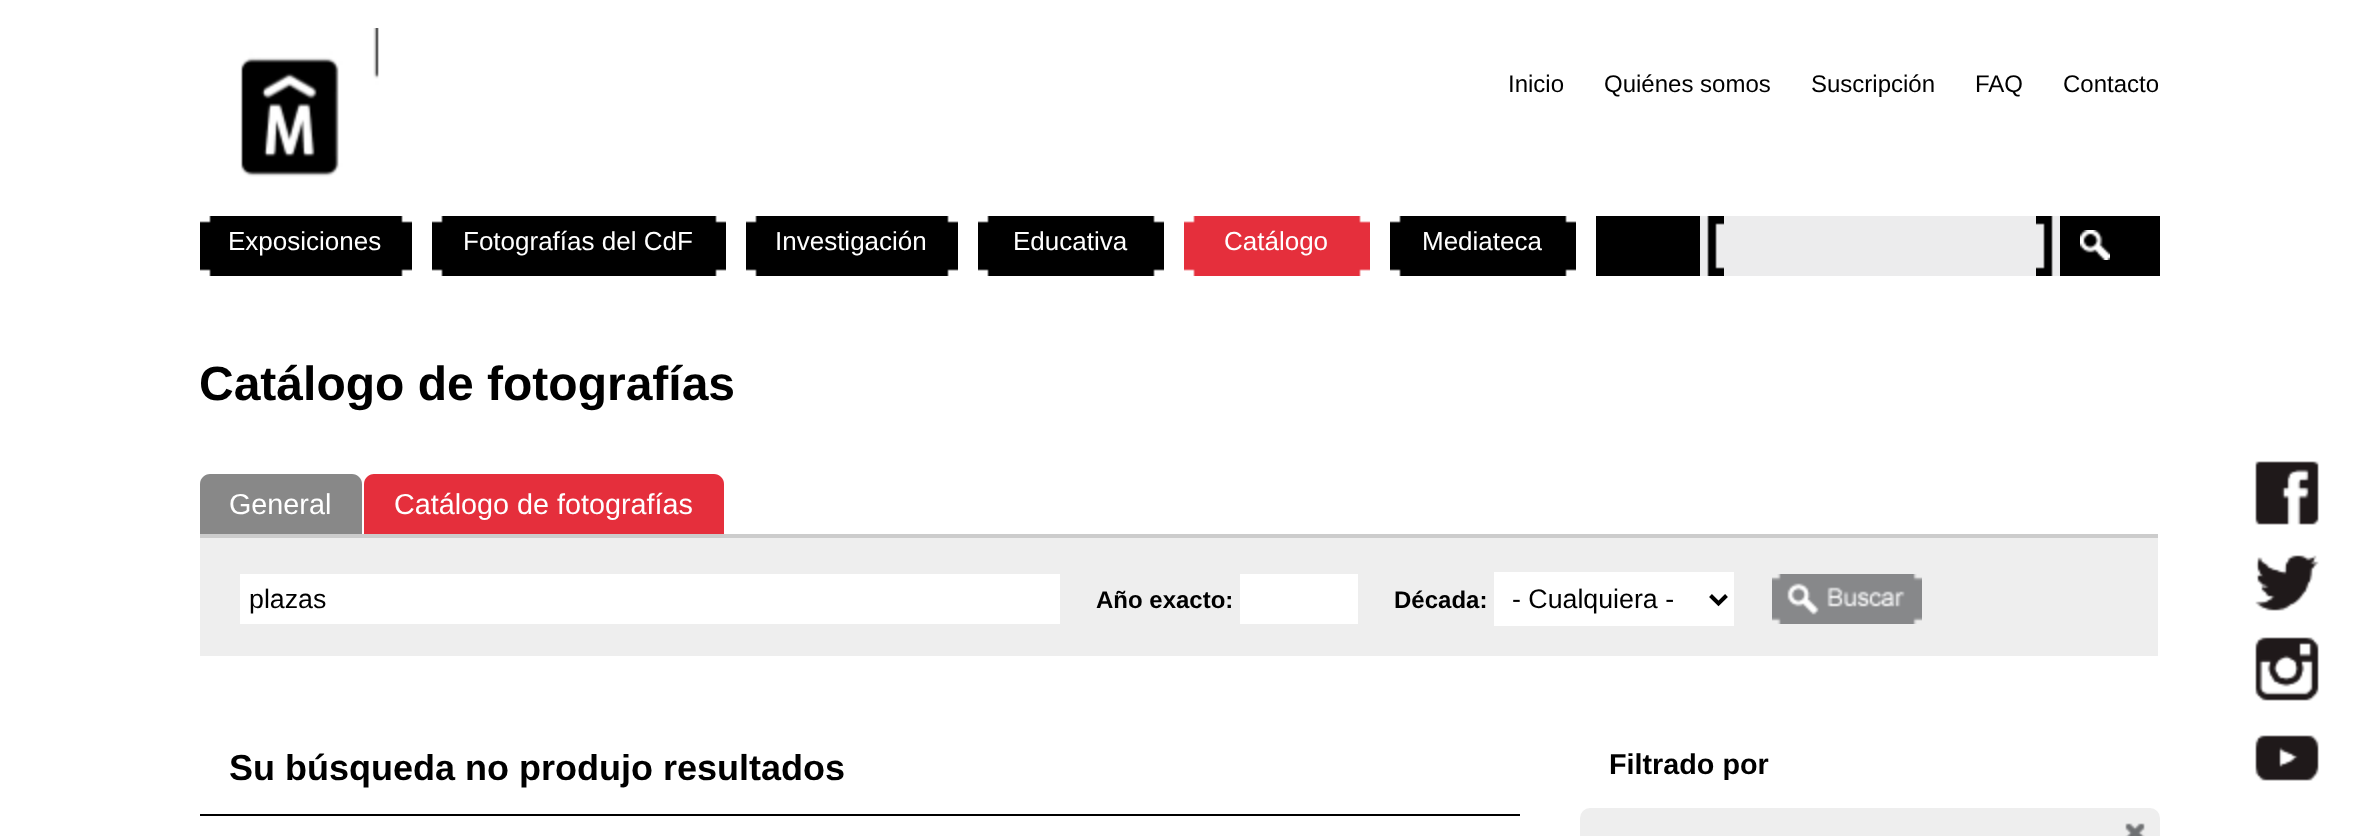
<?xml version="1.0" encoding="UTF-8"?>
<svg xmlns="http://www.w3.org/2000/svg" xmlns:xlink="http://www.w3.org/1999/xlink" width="2357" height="836">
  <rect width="100%" height="100%" fill="#ffffff" />
  <image x="240" y="28" width="139" height="149" xlink:href="image1.png" />
  <rect x="1596" y="216" width="564" height="60" fill="#000000" />
  <image x="200" y="216" width="212" height="60" xlink:href="image2.png" />
  <image x="432" y="216" width="294" height="60" xlink:href="image3.png" />
  <image x="746" y="216" width="212" height="60" xlink:href="image2.png" />
  <image x="978" y="216" width="186" height="60" xlink:href="image4.png" />
  <image x="1184" y="216" width="186" height="60" xlink:href="image5.png" />
  <image x="1390" y="216" width="186" height="60" xlink:href="image4.png" />
  <image x="1700" y="216" width="360" height="60" xlink:href="image6.png" />
  <rect x="1724" y="216" width="312" height="60" fill="#ececed" />
  <image x="2080" y="230" width="30" height="30" xlink:href="image7.png" />
  <rect x="200" y="534" width="1958" height="4" fill="#cccccc" />
  <path d="M 210 474 h 142 c 5.5 0 10 4.5 10 10 v 50 h -162 v -50 c 0 -5.5 4.5 -10 10 -10 z" fill="#888888" />
  <path d="M 374 474 h 340 c 5.5 0 10 4.5 10 10 v 50 h -360 v -50 c 0 -5.5 4.5 -10 10 -10 z" fill="#e52f3c" />
  <rect x="200" y="538" width="1958" height="118" fill="#eeeeee" />
  <rect x="240" y="574" width="820" height="50" fill="#ffffff" />
  <rect x="1240" y="574" width="118" height="50" fill="#ffffff" />
  <rect x="1494" y="572" width="240" height="54" fill="#ffffff" />
  <path d="M 1710.5 595.5 l 8 8 l 8 -8" fill="none" stroke="#000000" stroke-width="4" />
  <image x="1772" y="574" width="150" height="50" xlink:href="image8.png" />
  <rect x="200" y="814" width="1320" height="2" fill="#000000" />
  <rect x="1580" y="808" width="580" height="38" rx="10" fill="#eeeeee" />
  <image x="2125" y="823" width="20" height="13" xlink:href="image9.png" />
  <image x="2255" y="461" width="64" height="64" xlink:href="image10.png" />
  <image x="2255" y="555" width="64" height="56" xlink:href="image11.png" />
  <image x="2255" y="637" width="64" height="64" xlink:href="image12.png" />
  <image x="2255" y="735" width="64" height="46" xlink:href="image13.png" />
  <text x="1508" y="92" style="font-family: Liberation Sans; font-size: 24px; fill: #000000">Inicio</text>
  <text x="1604" y="92" style="font-family: Liberation Sans; font-size: 24px; fill: #000000">Quiénes somos</text>
  <text x="1811" y="92" style="font-family: Liberation Sans; font-size: 24px; fill: #000000">Suscripción</text>
  <text x="1975" y="92" style="font-family: Liberation Sans; font-size: 24px; fill: #000000">FAQ</text>
  <text x="2063" y="92" style="font-family: Liberation Sans; font-size: 24px; fill: #000000">Contacto</text>
  <text x="228" y="250" style="font-family: Liberation Sans; font-size: 26px; fill: #ffffff">Exposiciones</text>
  <text x="463" y="250" style="font-family: Liberation Sans; font-size: 26px; fill: #ffffff">Fotografías del CdF</text>
  <text x="775" y="250" style="font-family: Liberation Sans; font-size: 26px; fill: #ffffff">Investigación</text>
  <text x="1013" y="250" style="font-family: Liberation Sans; font-size: 26px; fill: #ffffff">Educativa</text>
  <text x="1224" y="250" style="font-family: Liberation Sans; font-size: 26px; fill: #ffffff">Catálogo</text>
  <text x="1422" y="250" style="font-family: Liberation Sans; font-size: 26px; fill: #ffffff">Mediateca</text>
  <text x="199" y="400" style="font-family: Liberation Sans; font-size: 48px; font-weight: bold; fill: #000000">Catálogo de fotografías</text>
  <text x="229" y="514" style="font-family: Liberation Sans; font-size: 28.75px; fill: #ffffff">General</text>
  <text x="394" y="514" style="font-family: Liberation Sans; font-size: 28.75px; fill: #ffffff">Catálogo de fotografías</text>
  <text x="249" y="608" style="font-family: Liberation Sans; font-size: 26.75px; fill: #000000">plazas</text>
  <text x="1096" y="608" style="font-family: Liberation Sans; font-size: 24px; font-weight: bold; fill: #000000">Año exacto:</text>
  <text x="1394" y="608" style="font-family: Liberation Sans; font-size: 24px; font-weight: bold; fill: #000000">Década:</text>
  <text x="1512" y="608" style="font-family: Liberation Sans; font-size: 26.75px; fill: #000000">- Cualquiera -</text>
  <text x="229" y="780" style="font-family: Liberation Sans; font-size: 36px; font-weight: bold; fill: #000000">Su búsqueda no produjo resultados</text>
  <text x="1609" y="774" style="font-family: Liberation Sans; font-size: 28.75px; font-weight: bold; fill: #000000">Filtrado por</text>
</svg>
